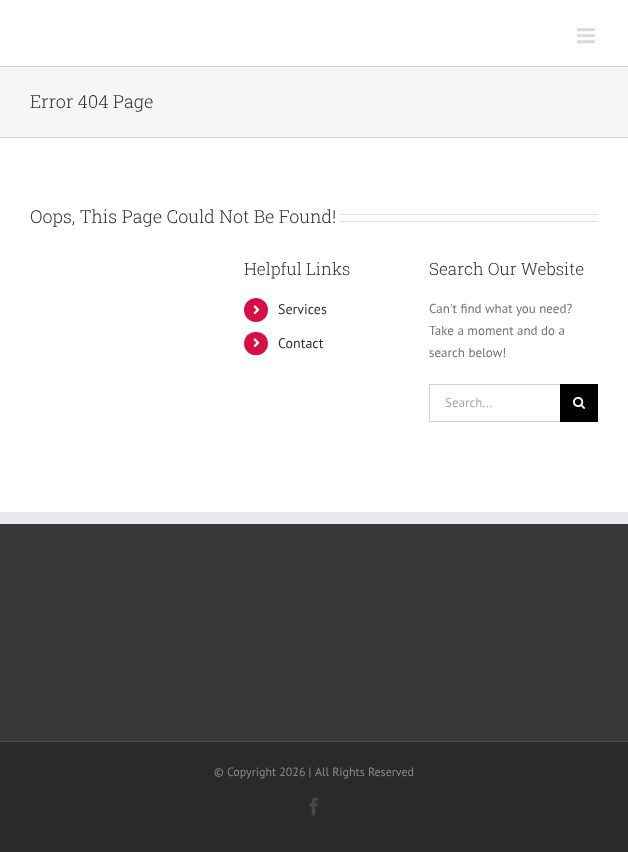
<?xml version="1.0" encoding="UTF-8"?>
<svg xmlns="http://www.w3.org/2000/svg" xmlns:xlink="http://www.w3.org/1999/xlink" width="628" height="852">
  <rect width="100%" height="100%" fill="#ffffff" />
  <image x="577" y="28" width="18" height="16" xlink:href="image1.png" />
  <rect y="67" width="628" height="70" fill="#f6f6f6" />
  <rect y="66" width="628" height="1" fill="#d2d3d4" />
  <rect y="137" width="628" height="1" fill="#d2d3d4" />
  <rect x="340" y="214" width="258" height="1" fill="#e0dede" />
  <rect x="340" y="221" width="258" height="1" fill="#e0dede" />
  <circle cx="256" cy="310" r="12" fill="#d31145" />
  <image x="253" y="305" width="7" height="10" xlink:href="image2.png" />
  <rect x="244" y="332" width="24" height="23" rx="11.5" fill="#d31145" />
  <image x="253" y="338" width="7" height="10" xlink:href="image2.png" />
  <rect x="429" y="384" width="131" height="1" fill="#d2d2d2" />
  <rect x="429" y="421" width="131" height="1" fill="#d2d2d2" />
  <rect x="429" y="384" width="1" height="38" fill="#d2d2d2" />
  <rect x="560" y="384" width="38" height="38" fill="#000000" />
  <image x="573" y="396" width="12" height="13" xlink:href="image3.png" />
  <rect y="524" width="628" height="217" fill="#363839" />
  <rect y="512" width="628" height="12" fill="#e9eaee" />
  <rect y="742" width="628" height="110" fill="#282a2b" />
  <rect y="741" width="628" height="1" fill="#4b4c4d" />
  <image x="309" y="797" width="9" height="19" xlink:href="image4.png" />
  <text x="30" y="108" style="font-family: Roboto Slab; font-size: 18px; font-weight: 300; fill: #333333">Error 404 Page</text>
  <text x="30" y="223" style="font-family: Roboto Slab; font-size: 18px; font-weight: 300; fill: #333333">Oops, This Page Could Not Be Found!</text>
  <text x="244" y="275" style="font-family: Roboto Slab; font-size: 17px; font-weight: 300; fill: #333333">Helpful Links</text>
  <text x="278" y="314" style="font-family: PT Sans; font-size: 14px; fill: #333333">Services</text>
  <text x="278" y="348" style="font-family: PT Sans; font-size: 14px; fill: #333333">Contact</text>
  <text x="429" y="275" style="font-family: Roboto Slab; font-size: 17px; font-weight: 300; fill: #333333">Search Our Website</text>
  <text x="429" y="313" style="font-family: PT Sans; font-size: 13px; fill: #747474">Can't find what you need?</text>
  <text x="429" y="335" style="font-family: PT Sans; font-size: 13px; fill: #747474">Take a moment and do a</text>
  <text x="429" y="357" style="font-family: PT Sans; font-size: 13px; fill: #747474">search below!</text>
  <text x="445" y="407" style="font-family: PT Sans; font-size: 13px; fill: #aaa9a9">Search...</text>
  <text x="214" y="776" style="font-family: PT Sans; font-size: 12px; fill: #8c8989">© Copyright 2026 |</text>
  <text x="315" y="776" style="font-family: PT Sans; font-size: 12px; fill: #8c8989">All Rights Reserved</text>
</svg>
